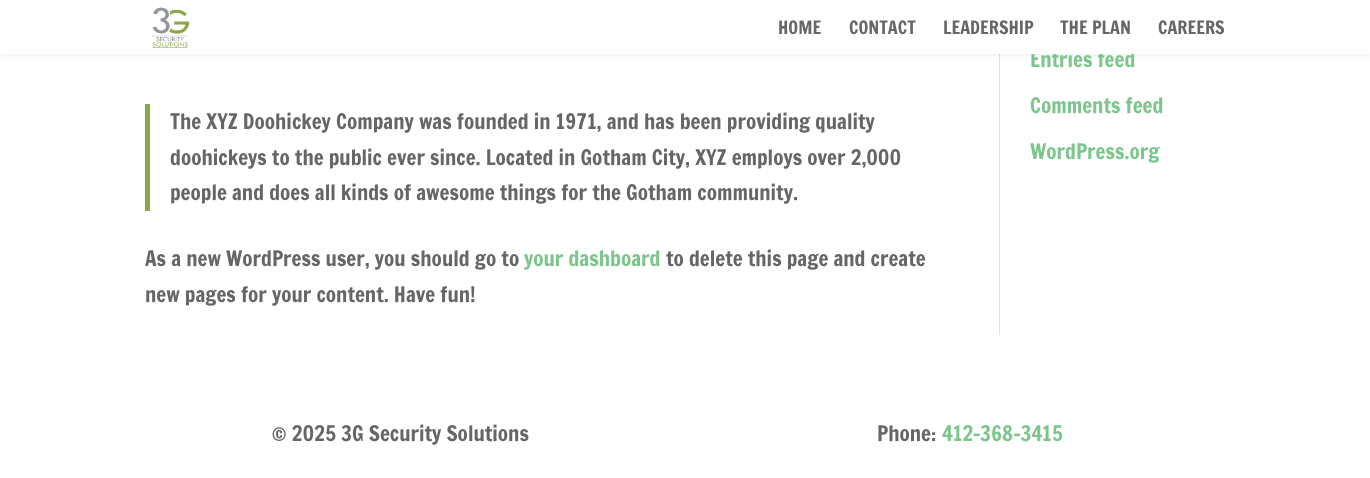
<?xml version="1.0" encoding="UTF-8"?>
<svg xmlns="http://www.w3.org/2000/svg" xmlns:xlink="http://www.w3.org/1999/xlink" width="1370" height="478">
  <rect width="100%" height="100%" fill="#ffffff" />
  <rect x="999" y="54" width="1" height="281" fill="#e2e2e2" />
  <rect width="1370" height="54" fill="#000000" fill-opacity="0.1" filter="blur(3.5px)" />
  <rect x="145" y="104" width="5" height="107" fill="#8ea64d" />
  <text x="170" y="129" style="font-family: Francois One; font-size: 21px; fill: #666666">The XYZ Doohickey Company was founded in 1971, and has been providing quality</text>
  <text x="170" y="165" style="font-family: Francois One; font-size: 21px; fill: #666666">doohickeys to the public ever since. Located in Gotham City, XYZ employs over 2,000</text>
  <text x="170" y="200" style="font-family: Francois One; font-size: 21px; fill: #666666">people and does all kinds of awesome things for the Gotham community.</text>
  <text x="145" y="266" style="font-family: Francois One; font-size: 21px; fill: #666666">As a new WordPress user, you should go to</text>
  <text x="524" y="266" style="font-family: Francois One; font-size: 21px; fill: #7cc68d">your dashboard</text>
  <text x="666" y="266" style="font-family: Francois One; font-size: 21px; fill: #666666">to delete this page and create</text>
  <text x="145" y="302" style="font-family: Francois One; font-size: 21px; fill: #666666">new pages for your content. Have fun!</text>
  <text x="1030" y="67" style="font-family: Francois One; font-size: 21px; fill: #7cc68d">Entries feed</text>
  <rect width="1370" height="54" fill="#ffffff" />
  <text x="1158" y="34" style="font-family: Francois One; font-size: 18px; fill: #666666">CAREERS</text>
  <text x="1060" y="34" style="font-family: Francois One; font-size: 18px; fill: #666666">THE PLAN</text>
  <text x="943" y="34" style="font-family: Francois One; font-size: 18px; fill: #666666">LEADERSHIP</text>
  <text x="849" y="34" style="font-family: Francois One; font-size: 18px; fill: #666666">CONTACT</text>
  <text x="778" y="34" style="font-family: Francois One; font-size: 18px; fill: #666666">HOME</text>
  <image x="152" y="7" width="38" height="41" xlink:href="image1.png" />
  <text x="1030" y="113" style="font-family: Francois One; font-size: 21px; fill: #7cc68d">Comments feed</text>
  <text x="1030" y="159" style="font-family: Francois One; font-size: 21px; fill: #7cc68d">WordPress.org</text>
  <text x="272" y="441" style="font-family: Francois One; font-size: 21px; fill: #666666">© 2025 3G Security Solutions</text>
  <text x="877" y="441" style="font-family: Francois One; font-size: 21px; fill: #666666">Phone:</text>
  <text x="942" y="441" style="font-family: Francois One; font-size: 21px; fill: #7cc68d">412-368-3415</text>
</svg>
